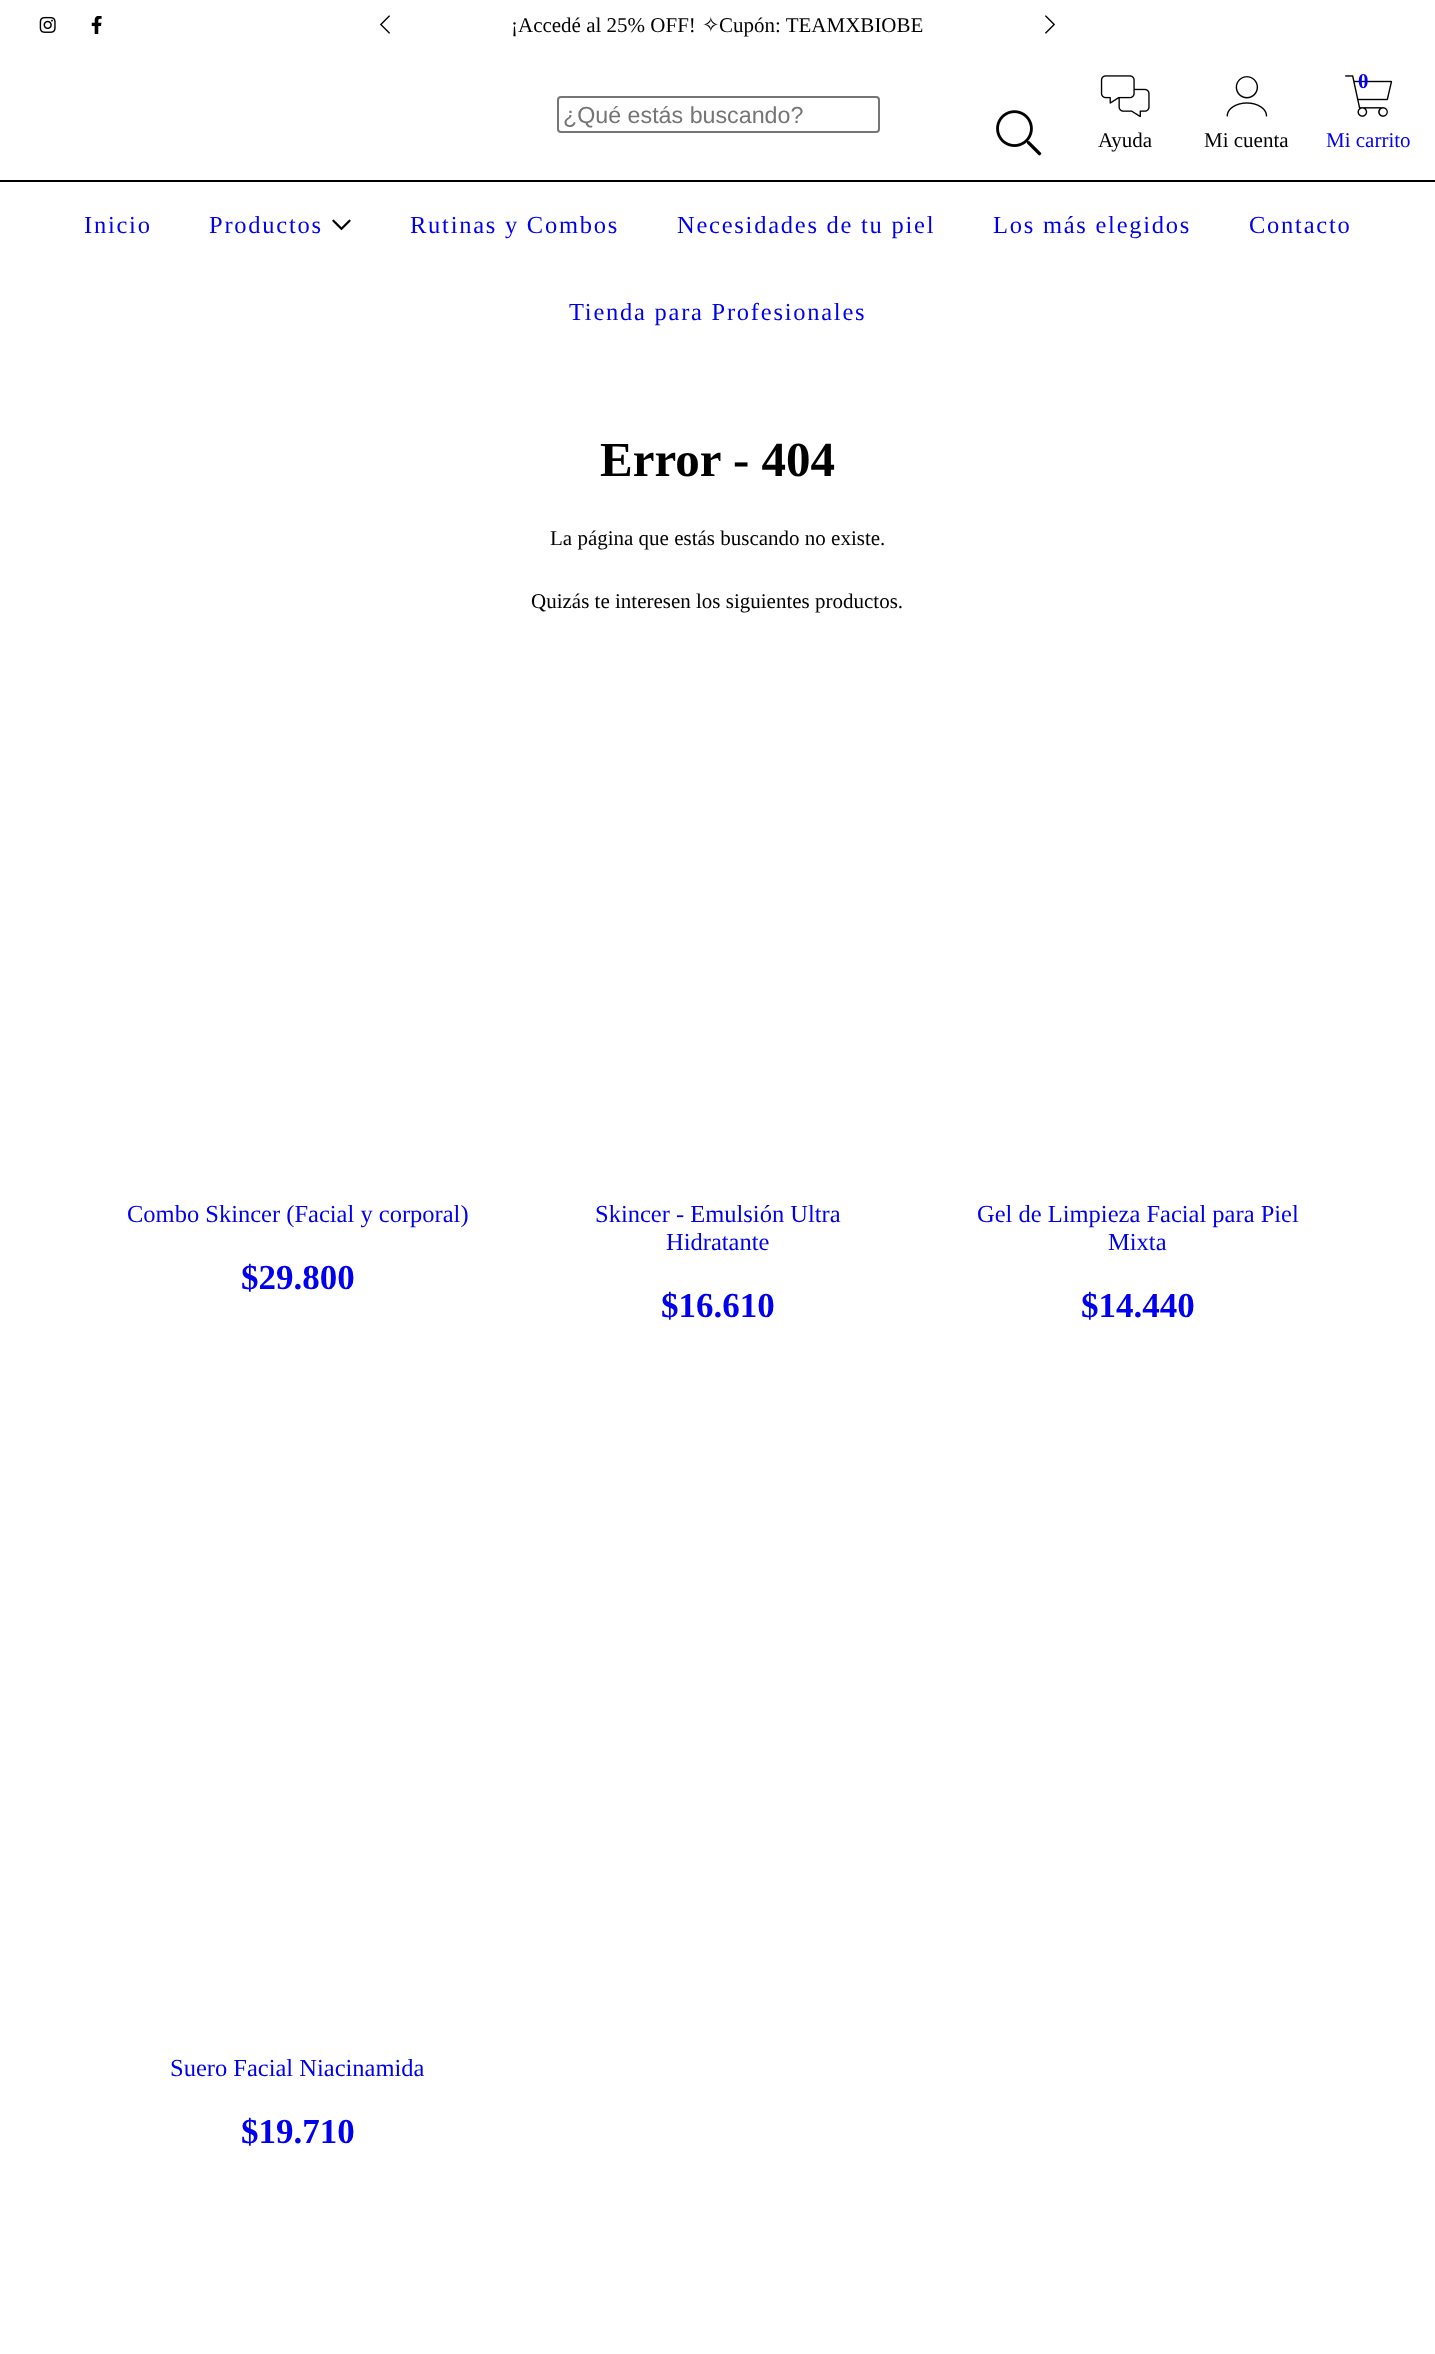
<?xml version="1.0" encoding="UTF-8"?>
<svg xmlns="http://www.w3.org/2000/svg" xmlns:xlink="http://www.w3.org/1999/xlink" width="1435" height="2354">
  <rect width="100%" height="100%" fill="#ffffff" />
  <image x="39" y="16" width="17" height="17" xlink:href="image1.png" />
  <image x="91" y="16" width="11" height="18" xlink:href="image2.png" />
  <image x="380" y="15" width="10" height="19" xlink:href="image3.png" />
  <image x="1045" y="15" width="10" height="19" xlink:href="image4.png" />
  <rect x="558" y="97" width="321" height="35" rx="3" fill="none" stroke="#767676" stroke-width="2" />
  <image x="996" y="110" width="46" height="46" xlink:href="image5.png" />
  <image x="1100" y="75" width="50" height="42" xlink:href="image6.png" />
  <image x="1226" y="76" width="42" height="41" xlink:href="image7.png" />
  <image x="1345" y="75" width="48" height="42" xlink:href="image8.png" />
  <rect y="180" width="1435" height="2" fill="#000000" />
  <image x="332" y="219" width="19" height="12" xlink:href="image9.png" />
  <text x="511" y="32" style="font-family: Liberation Serif; font-size: 21px; fill: #000000">¡Accedé al 25% OFF!</text>
  <text x="702" y="32" style="font-family: DejaVu Sans; font-size: 21px; fill: #000000">✧</text>
  <text x="719" y="32" style="font-family: Liberation Serif; font-size: 21px; fill: #000000">Cupón: TEAMXBIOBE</text>
  <text x="563" y="123" style="font-family: Liberation Sans; font-size: 23.25px; fill: #757575">¿Qué estás buscando?</text>
  <text x="1098" y="147" style="font-family: Liberation Serif; font-size: 21px; fill: #000000">Ayuda</text>
  <text x="1204" y="147" style="font-family: Liberation Serif; font-size: 21px; fill: #000000">Mi cuenta</text>
  <text x="1358" y="88" style="font-family: Liberation Serif; font-size: 21px; font-weight: bold; fill: #0000ee">0</text>
  <text x="1326" y="147" style="font-family: Liberation Serif; font-size: 21px; fill: #0000ee">Mi carrito</text>
  <text x="84" y="233" style="font-family: Liberation Serif; font-size: 24.5px; letter-spacing: 1.75px; fill: #0000ee">Inicio</text>
  <text x="209" y="233" style="font-family: Liberation Serif; font-size: 24.5px; letter-spacing: 1.75px; fill: #0000ee">Productos</text>
  <text x="410" y="233" style="font-family: Liberation Serif; font-size: 24.5px; letter-spacing: 1.75px; fill: #0000ee">Rutinas y Combos</text>
  <text x="677" y="233" style="font-family: Liberation Serif; font-size: 24.5px; letter-spacing: 1.75px; fill: #0000ee">Necesidades de tu piel</text>
  <text x="993" y="233" style="font-family: Liberation Serif; font-size: 24.5px; letter-spacing: 1.75px; fill: #0000ee">Los más elegidos</text>
  <text x="1249" y="233" style="font-family: Liberation Serif; font-size: 24.5px; letter-spacing: 1.75px; fill: #0000ee">Contacto</text>
  <text x="569" y="320" style="font-family: Liberation Serif; font-size: 24.5px; letter-spacing: 1.75px; fill: #0000ee">Tienda para Profesionales</text>
  <text x="600" y="476" style="font-family: Liberation Serif; font-size: 49px; font-weight: bold; fill: #000000">Error - 404</text>
  <text x="550" y="545" style="font-family: Liberation Serif; font-size: 21px; fill: #000000">La página que estás buscando no existe.</text>
  <text x="531" y="608" style="font-family: Liberation Serif; font-size: 21px; fill: #000000">Quizás te interesen los siguientes productos.</text>
  <text x="127" y="1222" style="font-family: Liberation Serif; font-size: 24.5px; fill: #0000ee">Combo Skincer (Facial y corporal)</text>
  <text x="241" y="1289" style="font-family: Liberation Serif; font-size: 35px; font-weight: bold; fill: #0000ee">$29.800</text>
  <text x="595" y="1222" style="font-family: Liberation Serif; font-size: 24.5px; fill: #0000ee">Skincer - Emulsión Ultra</text>
  <text x="666" y="1250" style="font-family: Liberation Serif; font-size: 24.5px; fill: #0000ee">Hidratante</text>
  <text x="661" y="1317" style="font-family: Liberation Serif; font-size: 35px; font-weight: bold; fill: #0000ee">$16.610</text>
  <text x="977" y="1222" style="font-family: Liberation Serif; font-size: 24.5px; fill: #0000ee">Gel de Limpieza Facial para Piel</text>
  <text x="1108" y="1250" style="font-family: Liberation Serif; font-size: 24.5px; fill: #0000ee">Mixta</text>
  <text x="1081" y="1317" style="font-family: Liberation Serif; font-size: 35px; font-weight: bold; fill: #0000ee">$14.440</text>
  <text x="170" y="2076" style="font-family: Liberation Serif; font-size: 24.5px; fill: #0000ee">Suero Facial Niacinamida</text>
  <text x="241" y="2143" style="font-family: Liberation Serif; font-size: 35px; font-weight: bold; fill: #0000ee">$19.710</text>
</svg>
